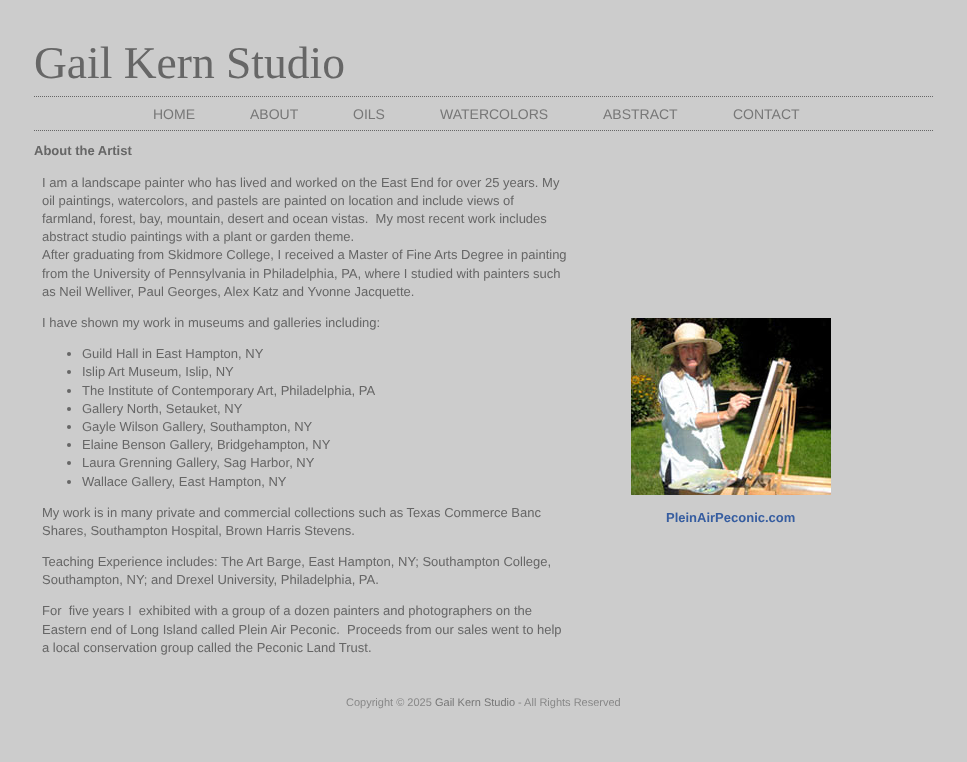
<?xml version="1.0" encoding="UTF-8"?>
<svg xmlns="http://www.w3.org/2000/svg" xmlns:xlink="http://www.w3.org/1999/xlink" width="967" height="762">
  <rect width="100%" height="100%" fill="#cccccc" />
  <path d="M 34 96.5 h 900" fill="none" stroke="#666666" stroke-dasharray="1 1" />
  <path d="M 34 130.5 h 900" fill="none" stroke="#666666" stroke-dasharray="1 1" />
  <circle cx="69" cy="354" r="2" fill="#666666" />
  <circle cx="69" cy="372" r="2" fill="#666666" />
  <circle cx="69" cy="391" r="2" fill="#666666" />
  <circle cx="69" cy="409" r="2" fill="#666666" />
  <circle cx="69" cy="427" r="2" fill="#666666" />
  <circle cx="69" cy="445" r="2" fill="#666666" />
  <circle cx="69" cy="463" r="2" fill="#666666" />
  <circle cx="69" cy="482" r="2" fill="#666666" />
  <image x="631" y="318" width="200" height="177" xlink:href="image1.png" />
  <text x="34" y="78" style="font-family: Liberation Serif; font-size: 45.5px; fill: #666666">Gail Kern Studio</text>
  <text x="153" y="119" style="font-family: Liberation Sans; font-size: 14px; fill: #777777">HOME</text>
  <text x="250" y="119" style="font-family: Liberation Sans; font-size: 14px; fill: #777777">ABOUT</text>
  <text x="353" y="119" style="font-family: Liberation Sans; font-size: 14px; fill: #777777">OILS</text>
  <text x="440" y="119" style="font-family: Liberation Sans; font-size: 14px; fill: #777777">WATERCOLORS</text>
  <text x="603" y="119" style="font-family: Liberation Sans; font-size: 14px; fill: #777777">ABSTRACT</text>
  <text x="733" y="119" style="font-family: Liberation Sans; font-size: 14px; fill: #777777">CONTACT</text>
  <text x="34" y="155" style="font-family: Liberation Sans; font-size: 13px; font-weight: bold; fill: #666666">About the Artist</text>
  <text x="42" y="187" style="font-family: Liberation Sans; font-size: 13px; fill: #666666">I am a landscape painter who has lived and worked on the East End for over 25 years. My</text>
  <text x="42" y="205" style="font-family: Liberation Sans; font-size: 13px; fill: #666666">oil paintings, watercolors, and pastels are painted on location and include views of</text>
  <text x="42" y="223" style="font-family: Liberation Sans; font-size: 13px; fill: #666666" xml:space="preserve">farmland, forest, bay, mountain, desert and ocean vistas.  My most recent work includes</text>
  <text x="42" y="241" style="font-family: Liberation Sans; font-size: 13px; fill: #666666">abstract studio paintings with a plant or garden theme.</text>
  <text x="42" y="259" style="font-family: Liberation Sans; font-size: 13px; fill: #666666">After graduating from Skidmore College, I received a Master of Fine Arts Degree in painting</text>
  <text x="42" y="278" style="font-family: Liberation Sans; font-size: 13px; fill: #666666">from the University of Pennsylvania in Philadelphia, PA, where I studied with painters such</text>
  <text x="42" y="296" style="font-family: Liberation Sans; font-size: 13px; fill: #666666">as Neil Welliver, Paul Georges, Alex Katz and Yvonne Jacquette.</text>
  <text x="42" y="327" style="font-family: Liberation Sans; font-size: 13px; fill: #666666">I have shown my work in museums and galleries including:</text>
  <text x="82" y="358" style="font-family: Liberation Sans; font-size: 13px; fill: #666666">Guild Hall in East Hampton, NY</text>
  <text x="82" y="376" style="font-family: Liberation Sans; font-size: 13px; fill: #666666">Islip Art Museum, Islip, NY</text>
  <text x="82" y="395" style="font-family: Liberation Sans; font-size: 13px; fill: #666666">The Institute of Contemporary Art, Philadelphia, PA</text>
  <text x="82" y="413" style="font-family: Liberation Sans; font-size: 13px; fill: #666666">Gallery North, Setauket, NY</text>
  <text x="82" y="431" style="font-family: Liberation Sans; font-size: 13px; fill: #666666">Gayle Wilson Gallery, Southampton, NY</text>
  <text x="82" y="449" style="font-family: Liberation Sans; font-size: 13px; fill: #666666">Elaine Benson Gallery, Bridgehampton, NY</text>
  <text x="82" y="467" style="font-family: Liberation Sans; font-size: 13px; fill: #666666">Laura Grenning Gallery, Sag Harbor, NY</text>
  <text x="82" y="486" style="font-family: Liberation Sans; font-size: 13px; fill: #666666">Wallace Gallery, East Hampton, NY</text>
  <text x="42" y="517" style="font-family: Liberation Sans; font-size: 13px; fill: #666666">My work is in many private and commercial collections such as Texas Commerce Banc</text>
  <text x="42" y="535" style="font-family: Liberation Sans; font-size: 13px; fill: #666666">Shares, Southampton Hospital, Brown Harris Stevens.</text>
  <text x="42" y="566" style="font-family: Liberation Sans; font-size: 13px; fill: #666666">Teaching Experience includes: The Art Barge, East Hampton, NY; Southampton College,</text>
  <text x="42" y="584" style="font-family: Liberation Sans; font-size: 13px; fill: #666666">Southampton, NY; and Drexel University, Philadelphia, PA.</text>
  <text x="42" y="615" style="font-family: Liberation Sans; font-size: 13px; fill: #666666" xml:space="preserve">For  five years I  exhibited with a group of a dozen painters and photographers on the</text>
  <text x="42" y="634" style="font-family: Liberation Sans; font-size: 13px; fill: #666666" xml:space="preserve">Eastern end of Long Island called Plein Air Peconic.  Proceeds from our sales went to help</text>
  <text x="42" y="652" style="font-family: Liberation Sans; font-size: 13px; fill: #666666">a local conservation group called the Peconic Land Trust.</text>
  <text x="666" y="522" style="font-family: Liberation Sans; font-size: 13px; font-weight: bold; fill: #365da0">PleinAirPeconic.com</text>
  <text x="346" y="706" style="font-family: Liberation Sans; font-size: 11px; fill: #888888">Copyright © 2025</text>
  <text x="435" y="706" style="font-family: Liberation Sans; font-size: 11px; fill: #777777">Gail Kern Studio</text>
  <text x="518" y="706" style="font-family: Liberation Sans; font-size: 11px; fill: #888888">- All Rights Reserved</text>
</svg>
